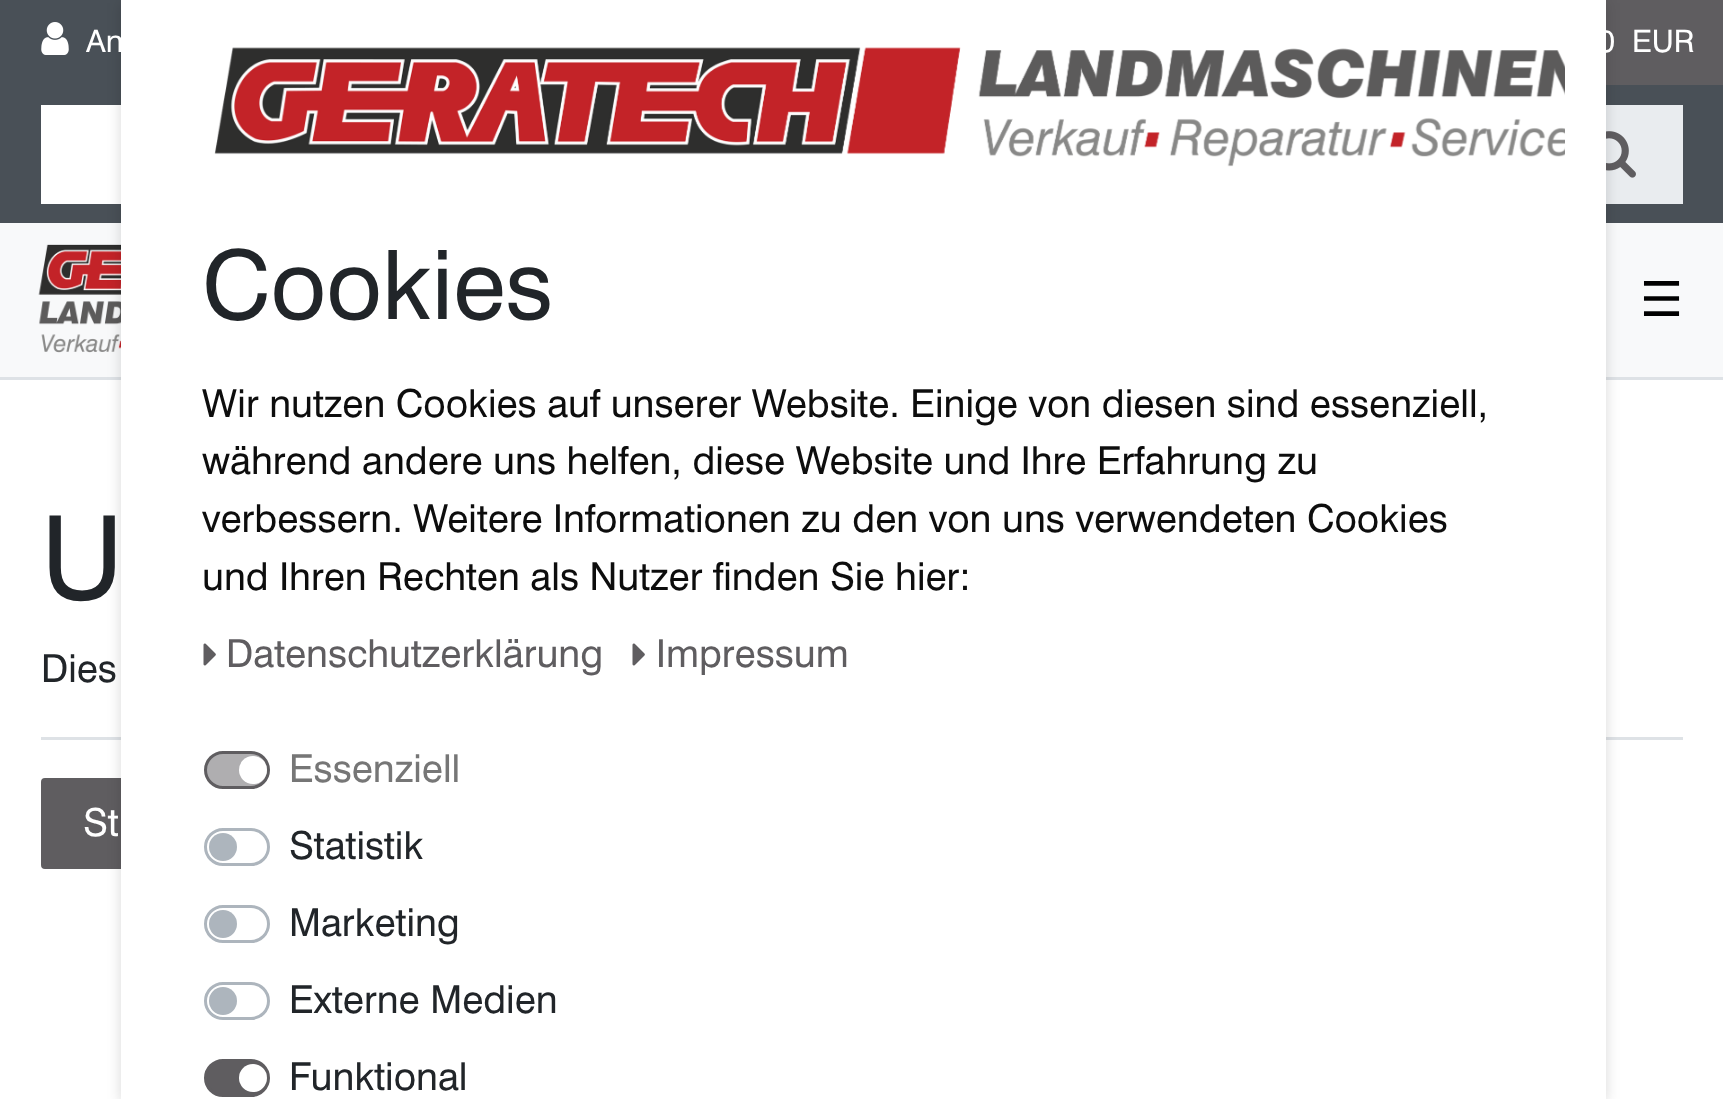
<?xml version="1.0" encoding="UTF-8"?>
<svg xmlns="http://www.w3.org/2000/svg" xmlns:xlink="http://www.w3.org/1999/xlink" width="1723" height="1099">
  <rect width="100%" height="100%" fill="#ffffff" />
  <rect width="1723" height="223" fill="#495057" />
  <image x="41" y="22" width="28" height="33" xlink:href="image1.png" />
  <rect x="1606" width="117" height="85" fill="#5f5d60" />
  <rect x="41" y="105" width="80" height="99" fill="#ffffff" />
  <rect x="1606" y="105" width="77" height="99" fill="#e9ecef" />
  <image x="1606" y="131" width="30" height="47" xlink:href="image2.png" />
  <rect y="223" width="1723" height="154" fill="#f8f9fa" />
  <rect y="377" width="1723" height="3" fill="#dee2e6" />
  <image x="38" y="244" width="83" height="109" xlink:href="image3.png" />
  <rect x="41" y="737" width="1642" height="3" fill="#dee2e6" />
  <rect x="42.5" y="779.5" width="239" height="88" rx="2.5" fill="#5f5d60" stroke="#5f5d60" stroke-width="3" />
  <rect x="121" y="3" width="1485" height="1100" fill="#000000" fill-opacity="0.15" filter="blur(7px)" />
  <rect x="121" width="1485" height="1099" fill="#ffffff" />
  <image x="214" y="47" width="1351" height="120" xlink:href="image4.png" />
  <image x="203" y="643" width="13" height="23" xlink:href="image5.png" />
  <image x="632" y="643" width="13" height="23" xlink:href="image5.png" />
  <rect x="205.5" y="752.5" width="63" height="35" rx="17.5" fill="#afaeb0" stroke="#5f5d60" stroke-width="3" />
  <circle cx="253" cy="770" r="14" fill="#ffffff" />
  <rect x="205.5" y="829.5" width="63" height="35" rx="17.5" fill="none" stroke="#adb5bd" stroke-width="3" />
  <circle cx="223" cy="847" r="14" fill="#adb5bd" />
  <rect x="205.5" y="906.5" width="63" height="35" rx="17.5" fill="none" stroke="#adb5bd" stroke-width="3" />
  <circle cx="223" cy="924" r="14" fill="#adb5bd" />
  <rect x="205.5" y="983.5" width="63" height="35" rx="17.5" fill="none" stroke="#adb5bd" stroke-width="3" />
  <circle cx="223" cy="1001" r="14" fill="#adb5bd" />
  <rect x="205.5" y="1060.5" width="63" height="35" rx="17.5" fill="#5f5d60" stroke="#5f5d60" stroke-width="3" />
  <circle cx="253" cy="1078" r="14" fill="#ffffff" />
  <text x="86" y="52" style="font-family: 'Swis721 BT'; font-size: 31px; fill: #ffffff">An</text>
  <text x="1598" y="52" style="font-family: 'Swis721 BT'; font-size: 31px; fill: #ffffff">0</text>
  <text x="1632" y="52" style="font-family: 'Swis721 BT'; font-size: 31px; fill: #ffffff">EUR</text>
  <text x="1640" y="316" style="font-family: DejaVu Sans; font-size: 48px; fill: #000000">☰</text>
  <text x="41" y="599" style="font-family: 'Swis721 BT'; font-size: 116px; fill: #212529">U</text>
  <text x="41" y="682" style="font-family: 'Swis721 BT'; font-size: 38.5px; fill: #212529">Dies</text>
  <text x="83" y="836" style="font-family: 'Swis721 BT'; font-size: 38.5px; fill: #ffffff">St</text>
  <text x="202" y="319" style="font-family: 'Swis721 BT'; font-size: 96px; fill: #212529">Cookies</text>
  <text x="202" y="417" style="font-family: 'Swis721 BT'; font-size: 38.5px; fill: #0d0d0d">Wir nutzen Cookies auf unserer Website. Einige von diesen sind essenziell,</text>
  <text x="202" y="474" style="font-family: 'Swis721 BT'; font-size: 38.5px; fill: #0d0d0d">während andere uns helfen, diese Website und Ihre Erfahrung zu</text>
  <text x="202" y="532" style="font-family: 'Swis721 BT'; font-size: 38.5px; fill: #0d0d0d">verbessern. Weitere Informationen zu den von uns verwendeten Cookies</text>
  <text x="202" y="590" style="font-family: 'Swis721 BT'; font-size: 38.5px; fill: #0d0d0d">und Ihren Rechten als Nutzer finden Sie hier:</text>
  <text x="226" y="667" style="font-family: 'Swis721 BT'; font-size: 38.5px; fill: #5f5d60">Datenschutzerklärung</text>
  <text x="656" y="667" style="font-family: 'Swis721 BT'; font-size: 38.5px; fill: #5f5d60">Impressum</text>
  <text x="289" y="782" style="font-family: 'Swis721 BT'; font-size: 38.5px; fill: #767676">Essenziell</text>
  <text x="289" y="859" style="font-family: 'Swis721 BT'; font-size: 38.5px; fill: #212529">Statistik</text>
  <text x="289" y="936" style="font-family: 'Swis721 BT'; font-size: 38.5px; fill: #212529">Marketing</text>
  <text x="289" y="1013" style="font-family: 'Swis721 BT'; font-size: 38.5px; fill: #212529">Externe Medien</text>
  <text x="289" y="1090" style="font-family: 'Swis721 BT'; font-size: 38.5px; fill: #212529">Funktional</text>
</svg>
